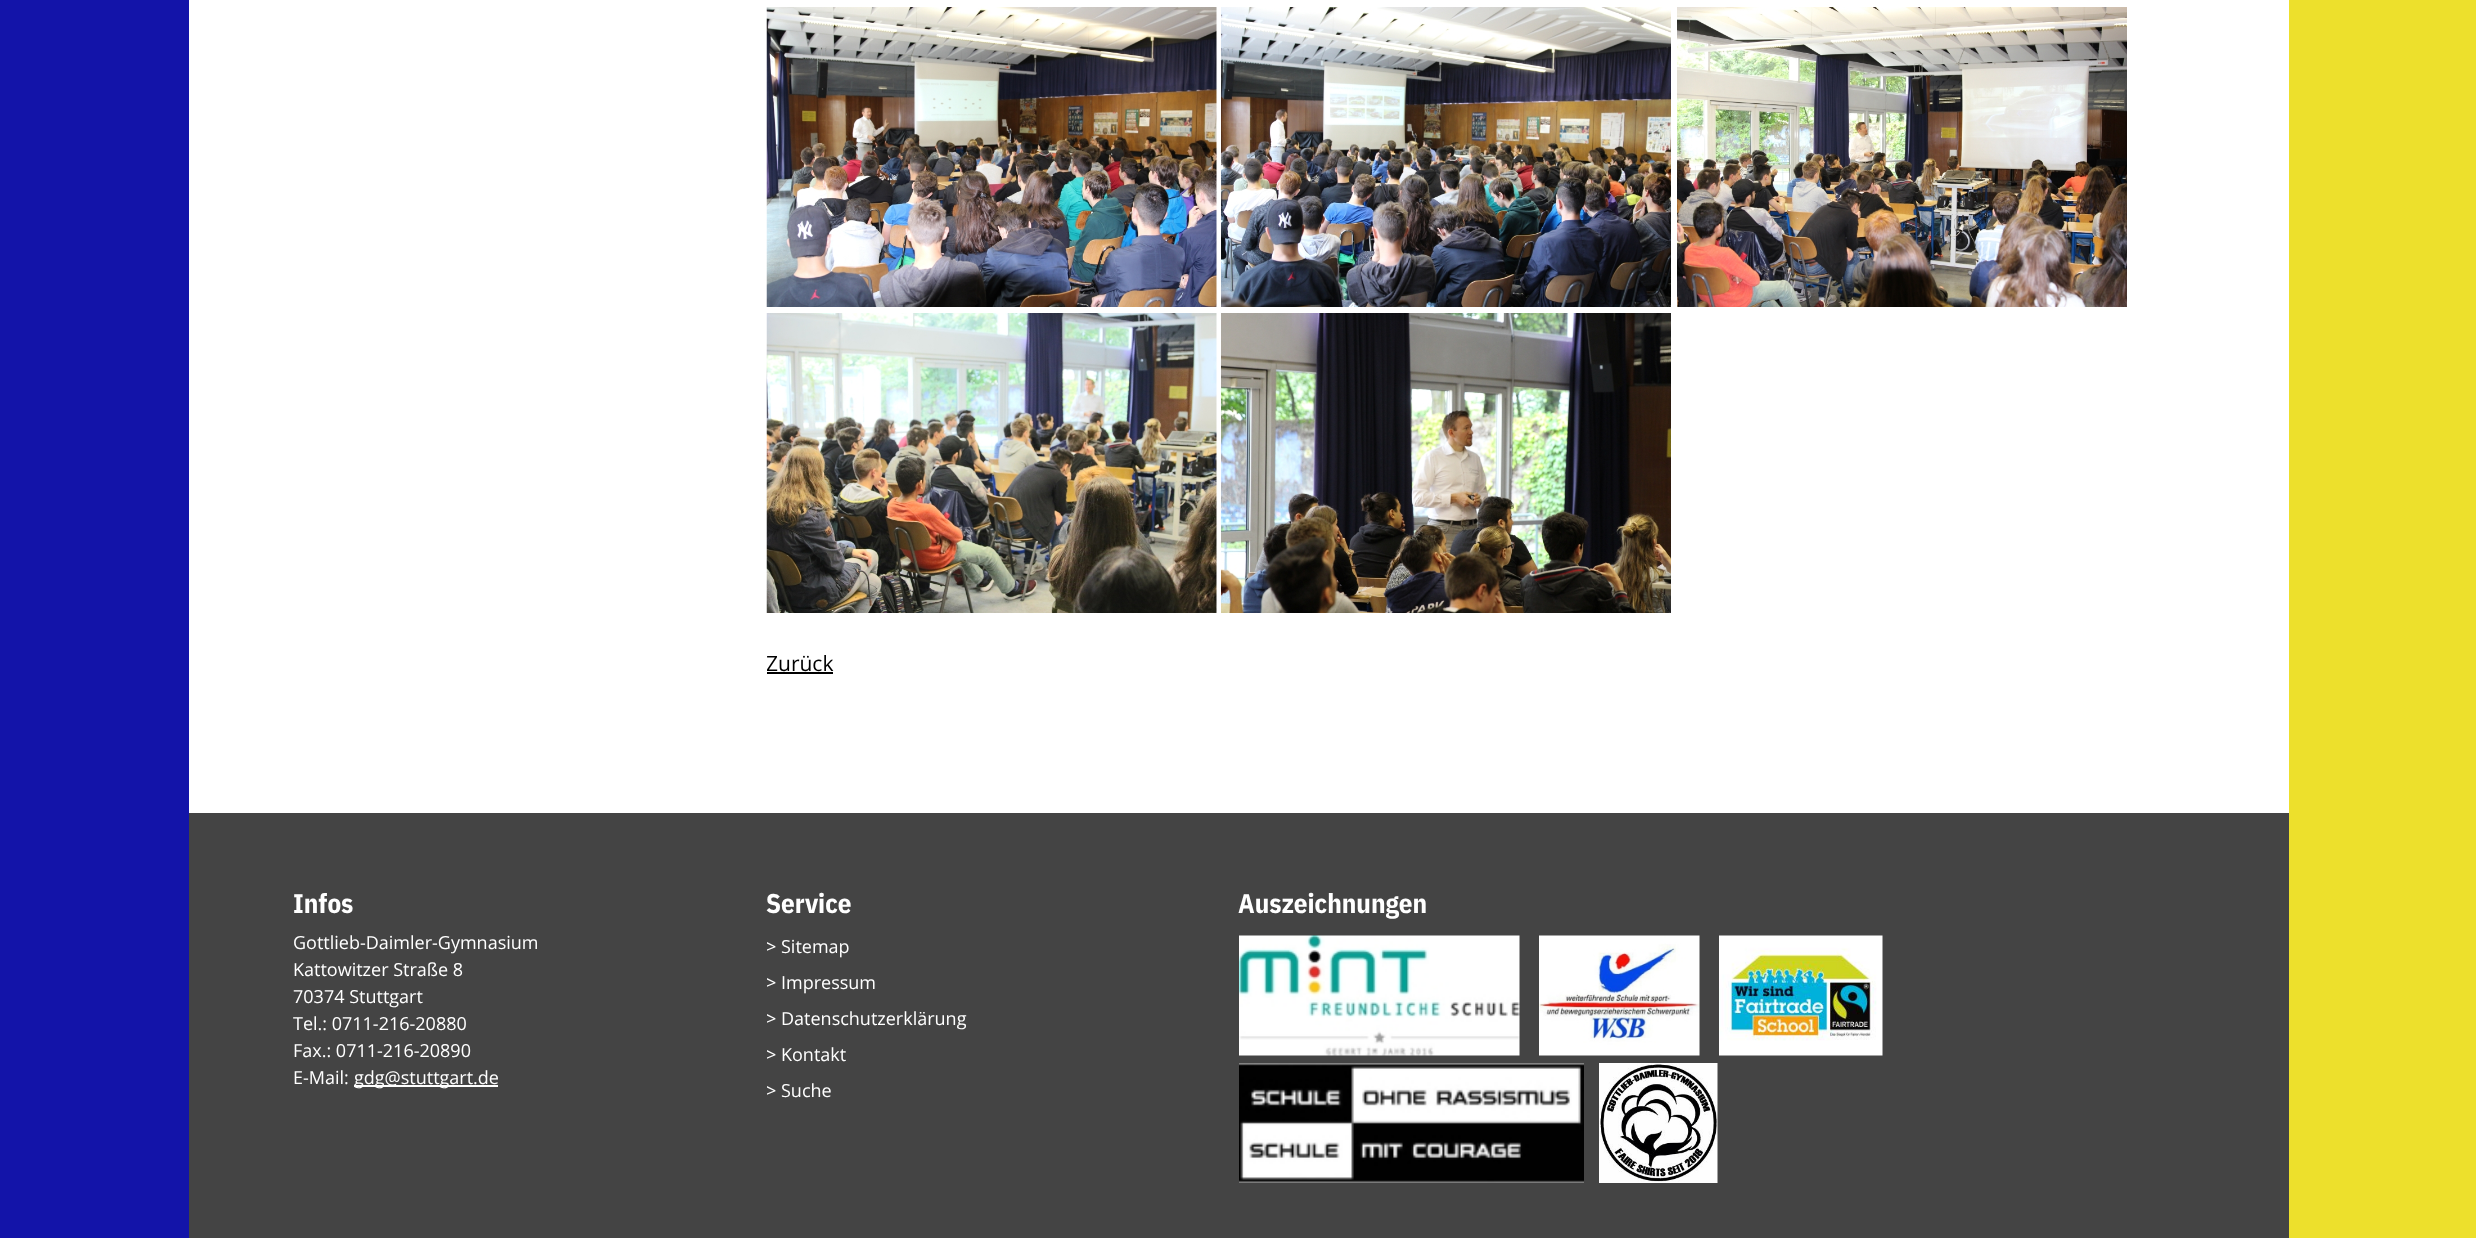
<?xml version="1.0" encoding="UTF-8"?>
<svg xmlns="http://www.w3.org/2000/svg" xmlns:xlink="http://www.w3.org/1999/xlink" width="2476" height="1238">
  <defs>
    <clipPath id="clip1"><rect x="767" width="1417" height="693" /></clipPath>
    <clipPath id="clip2"><rect x="767" y="929" width="472" height="180" /></clipPath>
  </defs>
  <rect width="100%" height="100%" fill="#1314a9" />
  <rect x="2289" width="187" height="1238" fill="#ede02c" />
  <rect x="189" width="2100" height="813" fill="#ffffff" />
  <image x="766" y="7" width="451" height="300" xlink:href="image1.png" />
  <image x="1221" y="7" width="450" height="300" xlink:href="image2.png" />
  <image x="1677" y="7" width="450" height="300" xlink:href="image3.png" />
  <image x="766" y="313" width="451" height="300" xlink:href="image4.png" />
  <image x="1221" y="313" width="450" height="300" xlink:href="image5.png" />
  <rect x="767" y="672" width="66" height="2" fill="#000000" />
  <rect x="189" y="813" width="2100" height="425" fill="#444444" />
  <rect x="354" y="1085" width="144" height="2" fill="#ffffff" />
  <image x="1239" y="935" width="281" height="121" xlink:href="image6.png" />
  <image x="1539" y="935" width="161" height="121" xlink:href="image7.png" />
  <image x="1719" y="935" width="164" height="121" xlink:href="image8.png" />
  <image x="1239" y="1063" width="345" height="120" xlink:href="image9.png" />
  <image x="1599" y="1063" width="119" height="120" xlink:href="image10.png" />
  <g clip-path="url(#clip1)">
    <text x="766" y="671" style="font-family: Open Sans; font-size: 21px; fill: #000000">Zurück</text>
  </g>
  <text x="293" y="913" style="font-family: IBM Plex Sans Condensed; font-size: 27px; font-weight: bold; fill: #ffffff">Infos</text>
  <text x="293" y="949" style="font-family: Open Sans; font-size: 18px; fill: #ffffff">Gottlieb-Daimler-Gymnasium</text>
  <text x="293" y="976" style="font-family: Open Sans; font-size: 18px; fill: #ffffff">Kattowitzer Straße 8</text>
  <text x="293" y="1003" style="font-family: Open Sans; font-size: 18px; fill: #ffffff">70374 Stuttgart</text>
  <text x="293" y="1030" style="font-family: Open Sans; font-size: 18px; fill: #ffffff">Tel.: 0711-216-20880</text>
  <text x="293" y="1057" style="font-family: Open Sans; font-size: 18px; fill: #ffffff">Fax.: 0711-216-20890</text>
  <text x="293" y="1084" style="font-family: Open Sans; font-size: 18px; fill: #ffffff">E-Mail:</text>
  <text x="354" y="1084" style="font-family: Open Sans; font-size: 18px; fill: #ffffff">gdg@stuttgart.de</text>
  <text x="766" y="913" style="font-family: IBM Plex Sans Condensed; font-size: 27px; font-weight: bold; fill: #ffffff">Service</text>
  <g clip-path="url(#clip2)">
    <text x="766" y="953" style="font-family: Open Sans; font-size: 18px; fill: #ffffff">&gt;</text>
  </g>
  <text x="781" y="953" style="font-family: Open Sans; font-size: 18px; fill: #ffffff">Sitemap</text>
  <g clip-path="url(#clip2)">
    <text x="766" y="989" style="font-family: Open Sans; font-size: 18px; fill: #ffffff">&gt;</text>
  </g>
  <text x="781" y="989" style="font-family: Open Sans; font-size: 18px; fill: #ffffff">Impressum</text>
  <g clip-path="url(#clip2)">
    <text x="766" y="1025" style="font-family: Open Sans; font-size: 18px; fill: #ffffff">&gt;</text>
  </g>
  <text x="781" y="1025" style="font-family: Open Sans; font-size: 18px; fill: #ffffff">Datenschutzerklärung</text>
  <g clip-path="url(#clip2)">
    <text x="766" y="1061" style="font-family: Open Sans; font-size: 18px; fill: #ffffff">&gt;</text>
  </g>
  <text x="781" y="1061" style="font-family: Open Sans; font-size: 18px; fill: #ffffff">Kontakt</text>
  <g clip-path="url(#clip2)">
    <text x="766" y="1097" style="font-family: Open Sans; font-size: 18px; fill: #ffffff">&gt;</text>
  </g>
  <text x="781" y="1097" style="font-family: Open Sans; font-size: 18px; fill: #ffffff">Suche</text>
  <text x="1238" y="913" style="font-family: IBM Plex Sans Condensed; font-size: 27px; font-weight: bold; fill: #ffffff">Auszeichnungen</text>
</svg>
